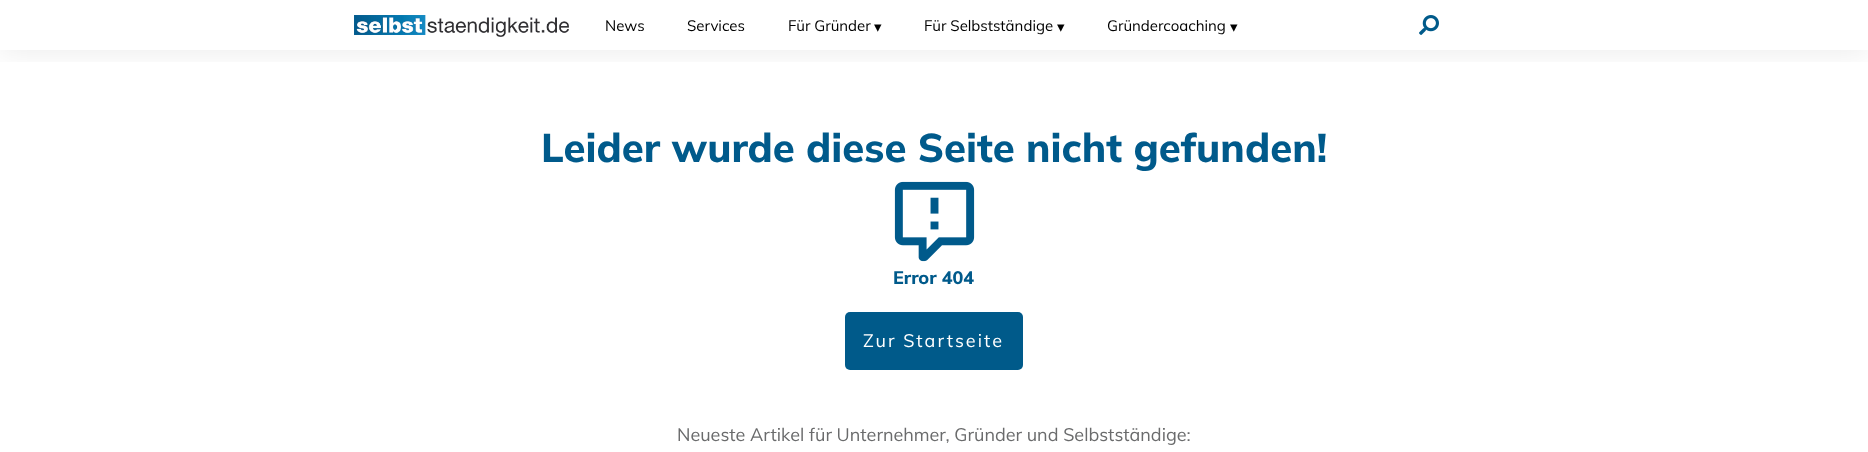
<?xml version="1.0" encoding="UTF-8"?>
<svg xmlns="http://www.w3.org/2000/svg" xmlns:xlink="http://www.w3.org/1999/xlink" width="1868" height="452">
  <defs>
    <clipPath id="clip1"><rect x="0" y="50" width="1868" height="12" /></clipPath>
  </defs>
  <rect width="100%" height="100%" fill="#ffffff" />
  <g clip-path="url(#clip1)">
    <rect y="2" width="1868" height="50" fill="#000000" fill-opacity="0.08" filter="blur(15px)" />
  </g>
  <image x="354" y="15" width="215" height="22" xlink:href="image1.png" />
  <image x="1419" y="15" width="20" height="20" xlink:href="image2.png" />
  <image x="894" y="181" width="81" height="81" xlink:href="image3.png" />
  <rect x="845" y="312" width="178" height="58" rx="5" fill="#005a8a" />
  <text x="605" y="31" style="font-family: Muli; font-size: 15px; fill: #000000">News</text>
  <text x="687" y="31" style="font-family: Muli; font-size: 15px; fill: #000000">Services</text>
  <text x="788" y="31" style="font-family: Muli; font-size: 15px; fill: #000000">Für Gründer</text>
  <text x="874" y="32" style="font-family: DejaVu Sans; font-size: 15px; fill: #000000">▾</text>
  <text x="924" y="31" style="font-family: Muli; font-size: 15px; fill: #000000">Für Selbstständige</text>
  <text x="1057" y="32" style="font-family: DejaVu Sans; font-size: 15px; fill: #000000">▾</text>
  <text x="1107" y="31" style="font-family: Muli; font-size: 15px; fill: #000000">Gründercoaching</text>
  <text x="1230" y="32" style="font-family: DejaVu Sans; font-size: 15px; fill: #000000">▾</text>
  <text x="541" y="162" style="font-family: Mulish; font-size: 40px; font-weight: 800; fill: #005a8b">Leider wurde diese Seite nicht gefunden!</text>
  <text x="893" y="284" style="font-family: Muli; font-size: 18px; font-weight: 800; fill: #005a8b">Error 404</text>
  <text x="863" y="347" style="font-family: Muli; font-size: 18px; letter-spacing: 2px; fill: #ffffff">Zur Startseite</text>
  <text x="677" y="441" style="font-family: Muli; font-size: 18px; fill: #6a6b6c">Neueste Artikel für Unternehmer, Gründer und Selbstständige:</text>
</svg>
